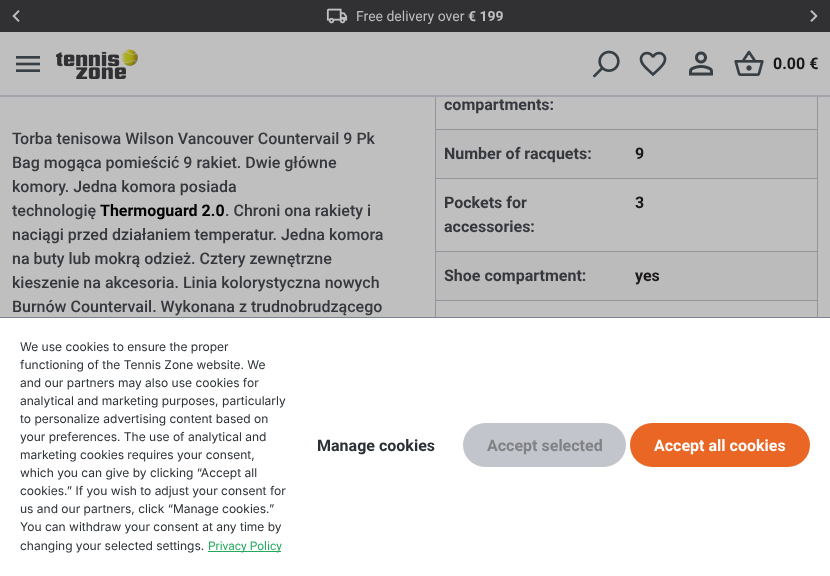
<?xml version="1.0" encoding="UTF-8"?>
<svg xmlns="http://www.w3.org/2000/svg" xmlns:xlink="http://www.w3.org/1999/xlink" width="830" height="576">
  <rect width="100%" height="100%" fill="#bfbfbf" />
  <rect width="830" height="32" fill="#313032" />
  <image x="12" y="10" width="8" height="12" xlink:href="image1.png" />
  <image x="326" y="8" width="22" height="16" xlink:href="image2.png" />
  <image x="810" y="10" width="8" height="12" xlink:href="image3.png" />
  <image x="56" y="49" width="82" height="30" xlink:href="image4.png" />
  <image x="16" y="56" width="24" height="16" xlink:href="image5.png" />
  <image x="593" y="50" width="27" height="28" xlink:href="image6.png" />
  <image x="639" y="51" width="28" height="26" xlink:href="image7.png" />
  <image x="689" y="51" width="24" height="25" xlink:href="image8.png" />
  <image x="734" y="50" width="30" height="26" xlink:href="image9.png" />
  <rect y="95" width="830" height="2" fill="#a4a4ac" />
  <rect x="435" y="97" width="1" height="32" fill="#92949a" />
  <rect x="817" y="97" width="1" height="32" fill="#92949a" />
  <rect x="436" y="130" width="381" height="48" fill="#bbbbbb" />
  <rect x="435" y="129" width="383" height="1" fill="#92949a" />
  <rect x="435" y="129" width="1" height="49" fill="#92949a" />
  <rect x="817" y="129" width="1" height="49" fill="#92949a" />
  <rect x="435" y="178" width="383" height="1" fill="#92949a" />
  <rect x="435" y="178" width="1" height="73" fill="#92949a" />
  <rect x="817" y="178" width="1" height="73" fill="#92949a" />
  <rect x="436" y="252" width="381" height="48" fill="#bbbbbb" />
  <rect x="435" y="251" width="383" height="1" fill="#92949a" />
  <rect x="435" y="251" width="1" height="49" fill="#92949a" />
  <rect x="817" y="251" width="1" height="49" fill="#92949a" />
  <rect x="435" y="300" width="383" height="1" fill="#92949a" />
  <rect x="435" y="300" width="1" height="17" fill="#92949a" />
  <rect x="817" y="300" width="1" height="17" fill="#92949a" />
  <rect y="318" width="830" height="258" fill="#ffffff" />
  <rect y="317" width="830" height="1" fill="#798490" />
  <rect x="208" y="551" width="73" height="1" fill="#25aa5d" />
  <rect x="463" y="423" width="163" height="44" rx="22" fill="#c3c5cd" />
  <rect x="630" y="423" width="180" height="44" rx="22" fill="#e96625" />
  <text x="356" y="21" style="font-family: Roboto; font-size: 14px; fill: #bfbfbf">Free delivery over</text>
  <text x="468" y="21" style="font-family: Roboto; font-size: 14px; font-weight: bold; fill: #bfbfbf">€ 199</text>
  <text x="773" y="69" style="font-family: Roboto; font-size: 16px; font-weight: bold; fill: #1a1718">0.00 €</text>
  <text x="12" y="144" style="font-family: Roboto; font-size: 16px; font-weight: 500; fill: #36383e">Torba tenisowa Wilson Vancouver Countervail 9 Pk</text>
  <text x="12" y="168" style="font-family: Roboto; font-size: 16px; font-weight: 500; fill: #36383e">Bag mogąca pomieścić 9 rakiet. Dwie główne</text>
  <text x="12" y="192" style="font-family: Roboto; font-size: 16px; font-weight: 500; fill: #36383e">komory. Jedna komora posiada</text>
  <text x="12" y="216" style="font-family: Roboto; font-size: 16px; font-weight: 500; fill: #36383e">technologię</text>
  <text x="100" y="216" style="font-family: Roboto; font-size: 16px; font-weight: bold; fill: #000000">Thermoguard 2.0</text>
  <text x="225" y="216" style="font-family: Roboto; font-size: 16px; font-weight: 500; fill: #36383e">. Chroni ona rakiety i</text>
  <text x="12" y="240" style="font-family: Roboto; font-size: 16px; font-weight: 500; fill: #36383e">naciągi przed działaniem temperatur. Jedna komora</text>
  <text x="12" y="264" style="font-family: Roboto; font-size: 16px; font-weight: 500; fill: #36383e">na buty lub mokrą odzież. Cztery zewnętrzne</text>
  <text x="12" y="288" style="font-family: Roboto; font-size: 16px; font-weight: 500; fill: #36383e">kieszenie na akcesoria. Linia kolorystyczna nowych</text>
  <text x="12" y="312" style="font-family: Roboto; font-size: 16px; font-weight: 500; fill: #36383e">Burnów Countervail. Wykonana z trudnobrudzącego</text>
  <text x="444" y="110" style="font-family: Roboto; font-size: 16px; font-weight: bold; fill: #36383e">compartments:</text>
  <text x="444" y="159" style="font-family: Roboto; font-size: 16px; font-weight: bold; fill: #36383e">Number of racquets:</text>
  <text x="635" y="159" style="font-family: Roboto; font-size: 16px; font-weight: bold; fill: #1a1718">9</text>
  <text x="444" y="208" style="font-family: Roboto; font-size: 16px; font-weight: bold; fill: #36383e">Pockets for</text>
  <text x="444" y="232" style="font-family: Roboto; font-size: 16px; font-weight: bold; fill: #36383e">accessories:</text>
  <text x="635" y="208" style="font-family: Roboto; font-size: 16px; font-weight: bold; fill: #1a1718">3</text>
  <text x="444" y="281" style="font-family: Roboto; font-size: 16px; font-weight: bold; fill: #36383e">Shoe compartment:</text>
  <text x="635" y="281" style="font-family: Roboto; font-size: 16px; font-weight: bold; fill: #1a1718">yes</text>
  <text x="20" y="351" style="font-family: Inter; font-size: 12px; fill: #2b3136">We use cookies to ensure the proper</text>
  <text x="20" y="369" style="font-family: Inter; font-size: 12px; fill: #2b3136">functioning of the Tennis Zone website. We</text>
  <text x="20" y="387" style="font-family: Inter; font-size: 12px; fill: #2b3136">and our partners may also use cookies for</text>
  <text x="20" y="405" style="font-family: Inter; font-size: 12px; fill: #2b3136">analytical and marketing purposes, particularly</text>
  <text x="20" y="423" style="font-family: Inter; font-size: 12px; fill: #2b3136">to personalize advertising content based on</text>
  <text x="20" y="441" style="font-family: Inter; font-size: 12px; fill: #2b3136">your preferences. The use of analytical and</text>
  <text x="20" y="459" style="font-family: Inter; font-size: 12px; fill: #2b3136">marketing cookies requires your consent,</text>
  <text x="20" y="477" style="font-family: Inter; font-size: 12px; fill: #2b3136">which you can give by clicking “Accept all</text>
  <text x="20" y="495" style="font-family: Inter; font-size: 12px; fill: #2b3136">cookies.” If you wish to adjust your consent for</text>
  <text x="20" y="513" style="font-family: Inter; font-size: 12px; fill: #2b3136">us and our partners, click “Manage cookies.”</text>
  <text x="20" y="531" style="font-family: Inter; font-size: 12px; fill: #2b3136">You can withdraw your consent at any time by</text>
  <text x="20" y="550" style="font-family: Inter; font-size: 12px; fill: #2b3136">changing your selected settings.</text>
  <text x="208" y="550" style="font-family: Roboto; font-size: 12px; fill: #25aa5d">Privacy Policy</text>
  <text x="317" y="451" style="font-family: Roboto; font-size: 16px; font-weight: bold; fill: #2b3136">Manage cookies</text>
  <text x="487" y="451" style="font-family: Roboto; font-size: 16px; font-weight: bold; fill: #808285">Accept selected</text>
  <text x="654" y="451" style="font-family: Roboto; font-size: 16px; font-weight: bold; fill: #ffffff">Accept all cookies</text>
</svg>
